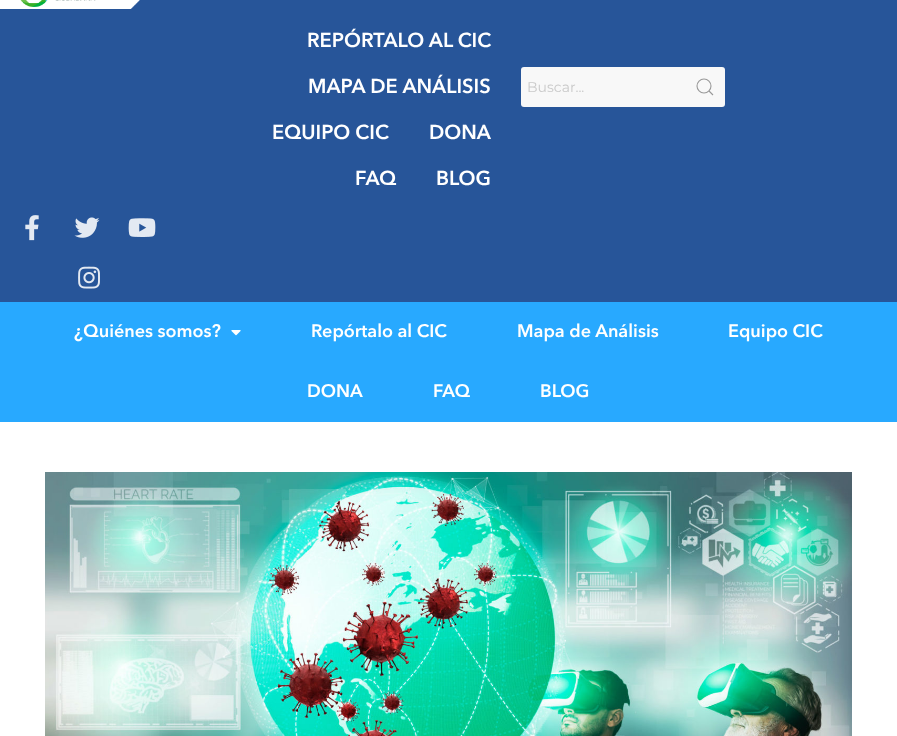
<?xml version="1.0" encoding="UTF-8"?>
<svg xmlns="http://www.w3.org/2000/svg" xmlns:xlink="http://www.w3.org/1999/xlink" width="897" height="736">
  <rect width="100%" height="100%" fill="#ffffff" />
  <rect y="302" width="897" height="120" fill="#28a9ff" />
  <rect width="897" height="302" fill="#275599" />
  <image x="0" y="0" width="140" height="9" xlink:href="image1.png" />
  <rect x="521" y="67" width="204" height="40" rx="3" fill="#f8f8f8" />
  <circle cx="704" cy="86" r="7" fill="none" stroke="#999999" stroke-width="1.1" />
  <path d="M 709 91 l 4 4 z" fill="none" stroke="#999999" stroke-width="1.1" />
  <image x="25" y="215" width="14" height="26" xlink:href="image2.png" />
  <image x="74" y="217" width="26" height="21" xlink:href="image3.png" />
  <image x="128" y="218" width="28" height="19" xlink:href="image4.png" />
  <image x="78" y="266" width="22" height="23" xlink:href="image5.png" />
  <image x="231" y="330" width="10" height="6" xlink:href="image6.png" />
  <image x="45" y="472" width="807" height="264" xlink:href="image7.png" />
  <text x="307" y="47" style="font-family: Avenir Next; font-size: 20px; font-weight: 600; fill: #ffffff">REPÓRTALO AL CIC</text>
  <text x="308" y="93" style="font-family: Avenir Next; font-size: 20px; font-weight: 600; fill: #ffffff">MAPA DE ANÁLISIS</text>
  <text x="272" y="139" style="font-family: Avenir Next; font-size: 20px; font-weight: 600; fill: #ffffff">EQUIPO CIC</text>
  <text x="429" y="139" style="font-family: Avenir Next; font-size: 20px; font-weight: 600; fill: #ffffff">DONA</text>
  <text x="355" y="185" style="font-family: Avenir Next; font-size: 20px; font-weight: 600; fill: #ffffff">FAQ</text>
  <text x="436" y="185" style="font-family: Avenir Next; font-size: 20px; font-weight: 600; fill: #ffffff">BLOG</text>
  <text x="527" y="92" style="font-family: Montserrat; font-size: 14px; fill: #c9c9c9">Buscar...</text>
  <text x="74" y="337" style="font-family: Avenir Next; font-size: 18px; font-weight: 600; fill: #ffffff">¿Quiénes somos?</text>
  <text x="311" y="337" style="font-family: Avenir Next; font-size: 18px; font-weight: 600; fill: #ffffff">Repórtalo al CIC</text>
  <text x="517" y="337" style="font-family: Avenir Next; font-size: 18px; font-weight: 600; fill: #ffffff">Mapa de Análisis</text>
  <text x="728" y="337" style="font-family: Avenir Next; font-size: 18px; font-weight: 600; fill: #ffffff">Equipo CIC</text>
  <text x="307" y="397" style="font-family: Avenir Next; font-size: 18px; font-weight: 600; fill: #ffffff">DONA</text>
  <text x="433" y="397" style="font-family: Avenir Next; font-size: 18px; font-weight: 600; fill: #ffffff">FAQ</text>
  <text x="540" y="397" style="font-family: Avenir Next; font-size: 18px; font-weight: 600; fill: #ffffff">BLOG</text>
</svg>
